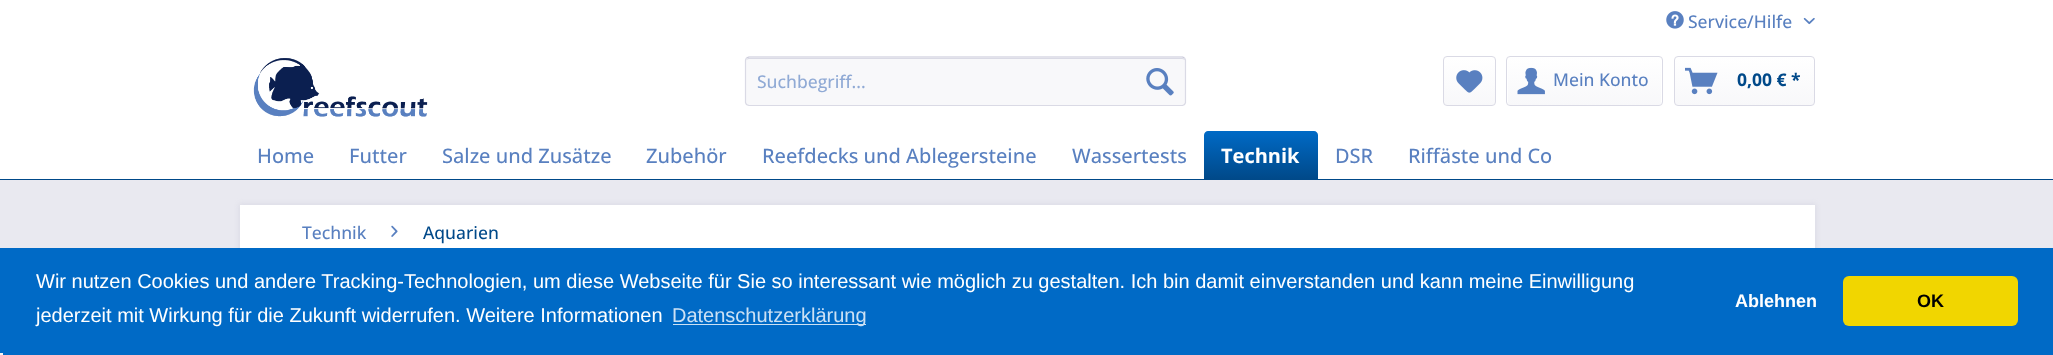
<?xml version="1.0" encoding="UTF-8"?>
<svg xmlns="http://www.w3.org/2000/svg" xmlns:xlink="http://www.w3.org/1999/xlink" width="2053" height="355">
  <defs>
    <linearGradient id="g1" gradientUnits="userSpaceOnUse" x1="1469" y1="58" x2="1469" y2="105"><stop offset="0" stop-color="#ffffff" /><stop offset="1" stop-color="#f8f8fa" /></linearGradient>
    <linearGradient id="g2" gradientUnits="userSpaceOnUse" x1="1584" y1="57" x2="1584" y2="105"><stop offset="0" stop-color="#ffffff" /><stop offset="1" stop-color="#f8f8fa" /></linearGradient>
    <linearGradient id="g3" gradientUnits="userSpaceOnUse" x1="1744" y1="57" x2="1744" y2="105"><stop offset="0" stop-color="#ffffff" /><stop offset="1" stop-color="#f8f8fa" /></linearGradient>
    <linearGradient id="g4" gradientUnits="userSpaceOnUse" x1="1261" y1="131" x2="1261" y2="179"><stop offset="0" stop-color="#006ac6" /><stop offset="1" stop-color="#004989" /></linearGradient>
  </defs>
  <rect width="100%" height="100%" fill="#e9e9f0" />
  <rect width="2053" height="179" fill="#ffffff" />
  <image x="1666" y="11" width="18" height="18" xlink:href="image1.png" />
  <image x="1803" y="17" width="12" height="8" xlink:href="image2.png" />
  <image x="253" y="58" width="175" height="59" xlink:href="image3.png" />
  <rect x="745" y="56" width="441" height="50" rx="4" fill="#f8f8fa" />
  <path d="M 749 59 h 433 c 2 0 3 1 3 2 c 0 -2 -1 -3 -3 -3 h -434 l -1 1 l -1 2 c 0 -1 1 -2 3 -2 z" fill="#dadae5" />
  <path d="M 746.5 58 l 2.5 -1 h 433.5 l 2 1" fill="none" stroke="#cbcbdb" stroke-width="1.2" />
  <path d="M 1184.5 58 l 1 2 v 42.5 l -1 2 l -2 1 h -433.5 l -2.5 -1 l -1 -2 v -42.5 l 1 -2" fill="none" stroke="#dadae5" stroke-width="1.2" />
  <image x="1146" y="68" width="28" height="28" xlink:href="image4.png" />
  <rect x="1444" y="58" width="51" height="47" rx="2.5" fill="url(#g1)" />
  <rect x="1443.5" y="56.5" width="52" height="49" rx="3.5" fill="none" stroke="#dadae5" />
  <image x="1456" y="70" width="27" height="23" xlink:href="image5.png" />
  <rect x="1508" y="58" width="153" height="47" rx="2.5" fill="url(#g2)" />
  <rect x="1506.5" y="56.5" width="156" height="49" rx="3.5" fill="none" stroke="#dadae5" />
  <image x="1517" y="67" width="28" height="28" xlink:href="image6.png" />
  <rect x="1675" y="58" width="139" height="47" rx="2.5" fill="url(#g3)" />
  <rect x="1674.5" y="56.5" width="140" height="49" rx="3.5" fill="none" stroke="#dadae5" />
  <image x="1685" y="67" width="33" height="28" xlink:href="image7.png" />
  <rect y="179" width="2053" height="1" fill="#004989" />
  <path d="M 1208 131 h 106 c 2 0 4 2 4 4 v 44 h -114 v -44 c 0 -2 2 -4 4 -4 z" fill="url(#g4)" />
  <rect x="239" y="204" width="1577" height="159" fill="#dadae5" filter="blur(2.5px)" />
  <rect x="240" y="205" width="1575" height="43" fill="#ffffff" />
  <image x="391" y="225" width="7" height="12" xlink:href="image8.png" />
  <rect y="248" width="2053" height="107" fill="#006ac6" />
  <rect x="673" y="324" width="193" height="1" fill="#cce1f4" />
  <rect x="1843" y="276" width="175" height="50" rx="6" fill="#f1d600" />
  <rect y="353" width="3" height="2" fill="#f5f5f5" />
  <text x="1688" y="28" style="font-family: Open Sans; font-size: 17.5px; font-weight: 500; fill: #5980c0">Service/Hilfe</text>
  <text x="757" y="88" style="font-family: Open Sans; font-size: 17.5px; font-weight: 500; fill: #90aad5">Suchbegriff...</text>
  <text x="1553" y="86" style="font-family: Open Sans; font-size: 17.5px; font-weight: 500; fill: #5980c0">Mein Konto</text>
  <text x="1737" y="86" style="font-family: Open Sans; font-size: 17.5px; font-weight: bold; fill: #004989">0,00 € *</text>
  <text x="257" y="163" style="font-family: Open Sans; font-size: 20px; font-weight: 500; fill: #5980c0">Home</text>
  <text x="349" y="163" style="font-family: Open Sans; font-size: 20px; font-weight: 500; fill: #5980c0">Futter</text>
  <text x="442" y="163" style="font-family: Open Sans; font-size: 20px; font-weight: 500; fill: #5980c0">Salze und Zusätze</text>
  <text x="646" y="163" style="font-family: Open Sans; font-size: 20px; font-weight: 500; fill: #5980c0">Zubehör</text>
  <text x="762" y="163" style="font-family: Open Sans; font-size: 20px; font-weight: 500; fill: #5980c0">Reefdecks und Ablegersteine</text>
  <text x="1072" y="163" style="font-family: Open Sans; font-size: 20px; font-weight: 500; fill: #5980c0">Wassertests</text>
  <text x="1221" y="163" style="font-family: Open Sans; font-size: 20px; font-weight: bold; fill: #ffffff">Technik</text>
  <text x="1335" y="163" style="font-family: Open Sans; font-size: 20px; font-weight: 500; fill: #5980c0">DSR</text>
  <text x="1408" y="163" style="font-family: Open Sans; font-size: 20px; font-weight: 500; fill: #5980c0">Riffäste und Co</text>
  <text x="302" y="239" style="font-family: Open Sans; font-size: 17.5px; font-weight: 500; fill: #5980c0">Technik</text>
  <text x="423" y="239" style="font-family: Open Sans; font-size: 17.5px; font-weight: 500; fill: #004989">Aquarien</text>
  <text x="36" y="288" style="font-family: Liberation Sans; font-size: 20px; fill: #ffffff">Wir nutzen Cookies und andere Tracking-Technologien, um diese Webseite für Sie so interessant wie möglich zu gestalten. Ich bin damit einverstanden und kann meine Einwilligung</text>
  <text x="36" y="322" style="font-family: Liberation Sans; font-size: 20px; fill: #ffffff">jederzeit mit Wirkung für die Zukunft widerrufen. Weitere Informationen</text>
  <text x="672" y="322" style="font-family: Liberation Sans; font-size: 20px; fill: #cce1f4">Datenschutzerklärung</text>
  <text x="1735" y="307" style="font-family: Liberation Sans; font-size: 18px; font-weight: bold; fill: #ffffff">Ablehnen</text>
  <text x="1917" y="307" style="font-family: Liberation Sans; font-size: 18px; font-weight: bold; fill: #000000">OK</text>
</svg>
